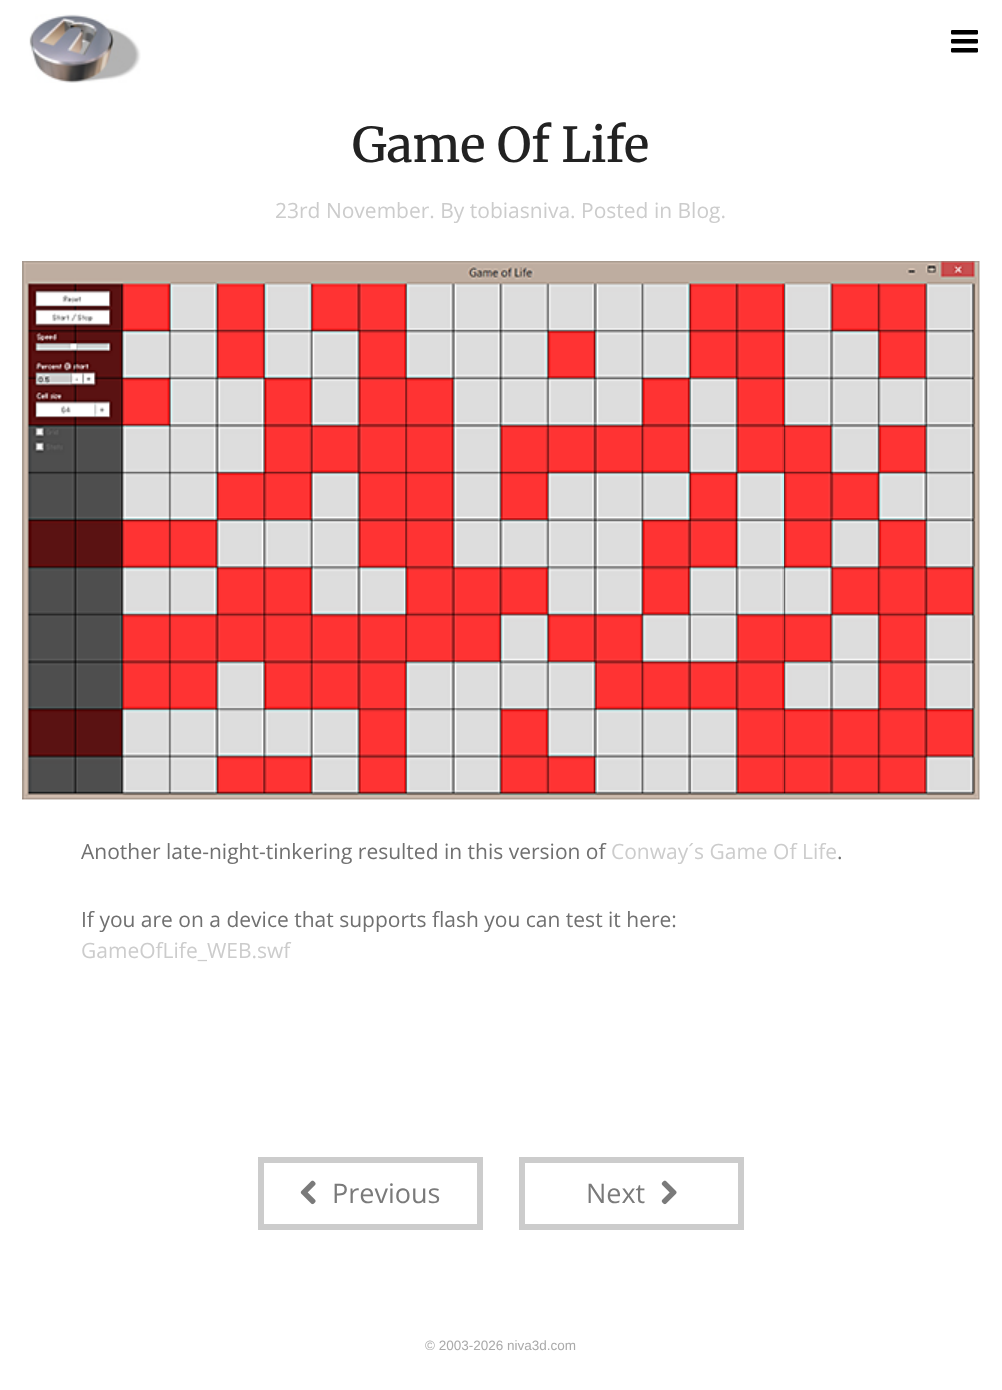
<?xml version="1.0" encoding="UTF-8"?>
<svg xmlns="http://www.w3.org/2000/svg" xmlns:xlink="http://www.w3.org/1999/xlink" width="1002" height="1390">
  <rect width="100%" height="100%" fill="#ffffff" />
  <image x="29" y="14" width="112" height="69" xlink:href="image1.png" />
  <image x="951" y="30" width="27" height="23" xlink:href="image2.png" />
  <image x="22" y="261" width="958" height="539" xlink:href="image3.png" />
  <rect x="261" y="1160" width="219" height="67" fill="none" stroke="#cccccc" stroke-width="6" />
  <image x="300" y="1180" width="16" height="25" xlink:href="image4.png" />
  <rect x="522" y="1160" width="219" height="67" fill="none" stroke="#cccccc" stroke-width="6" />
  <image x="661" y="1180" width="16" height="25" xlink:href="image5.png" />
  <text x="352" y="162" style="font-family: Merriweather; font-size: 48px; font-weight: 500; fill: #222222">Game Of Life</text>
  <text x="275" y="218" style="font-family: Open Sans; font-size: 21px; fill: #cccccc">23rd November. By tobiasniva. Posted in Blog.</text>
  <text x="81" y="859" style="font-family: Open Sans; font-size: 21px; fill: #707070">Another late-night-tinkering resulted in this version of</text>
  <text x="611" y="859" style="font-family: Open Sans; font-size: 21px; fill: #cccccc">Conway´s Game Of Life</text>
  <text x="837" y="859" style="font-family: Open Sans; font-size: 21px; fill: #707070">.</text>
  <text x="81" y="927" style="font-family: Open Sans; font-size: 21px; fill: #707070">If you are on a device that supports flash you can test it here:</text>
  <text x="81" y="958" style="font-family: Open Sans; font-size: 21px; fill: #cccccc">GameOfLife_WEB.swf</text>
  <text x="332" y="1203" style="font-family: Open Sans; font-size: 27px; fill: #7a7a7a">Previous</text>
  <text x="586" y="1203" style="font-family: Open Sans; font-size: 27px; fill: #7a7a7a">Next</text>
  <text x="425" y="1350" style="font-family: Liberation Sans; font-size: 13.5px; fill: #aaaaaa">© 2003-2026 niva3d.com</text>
</svg>
